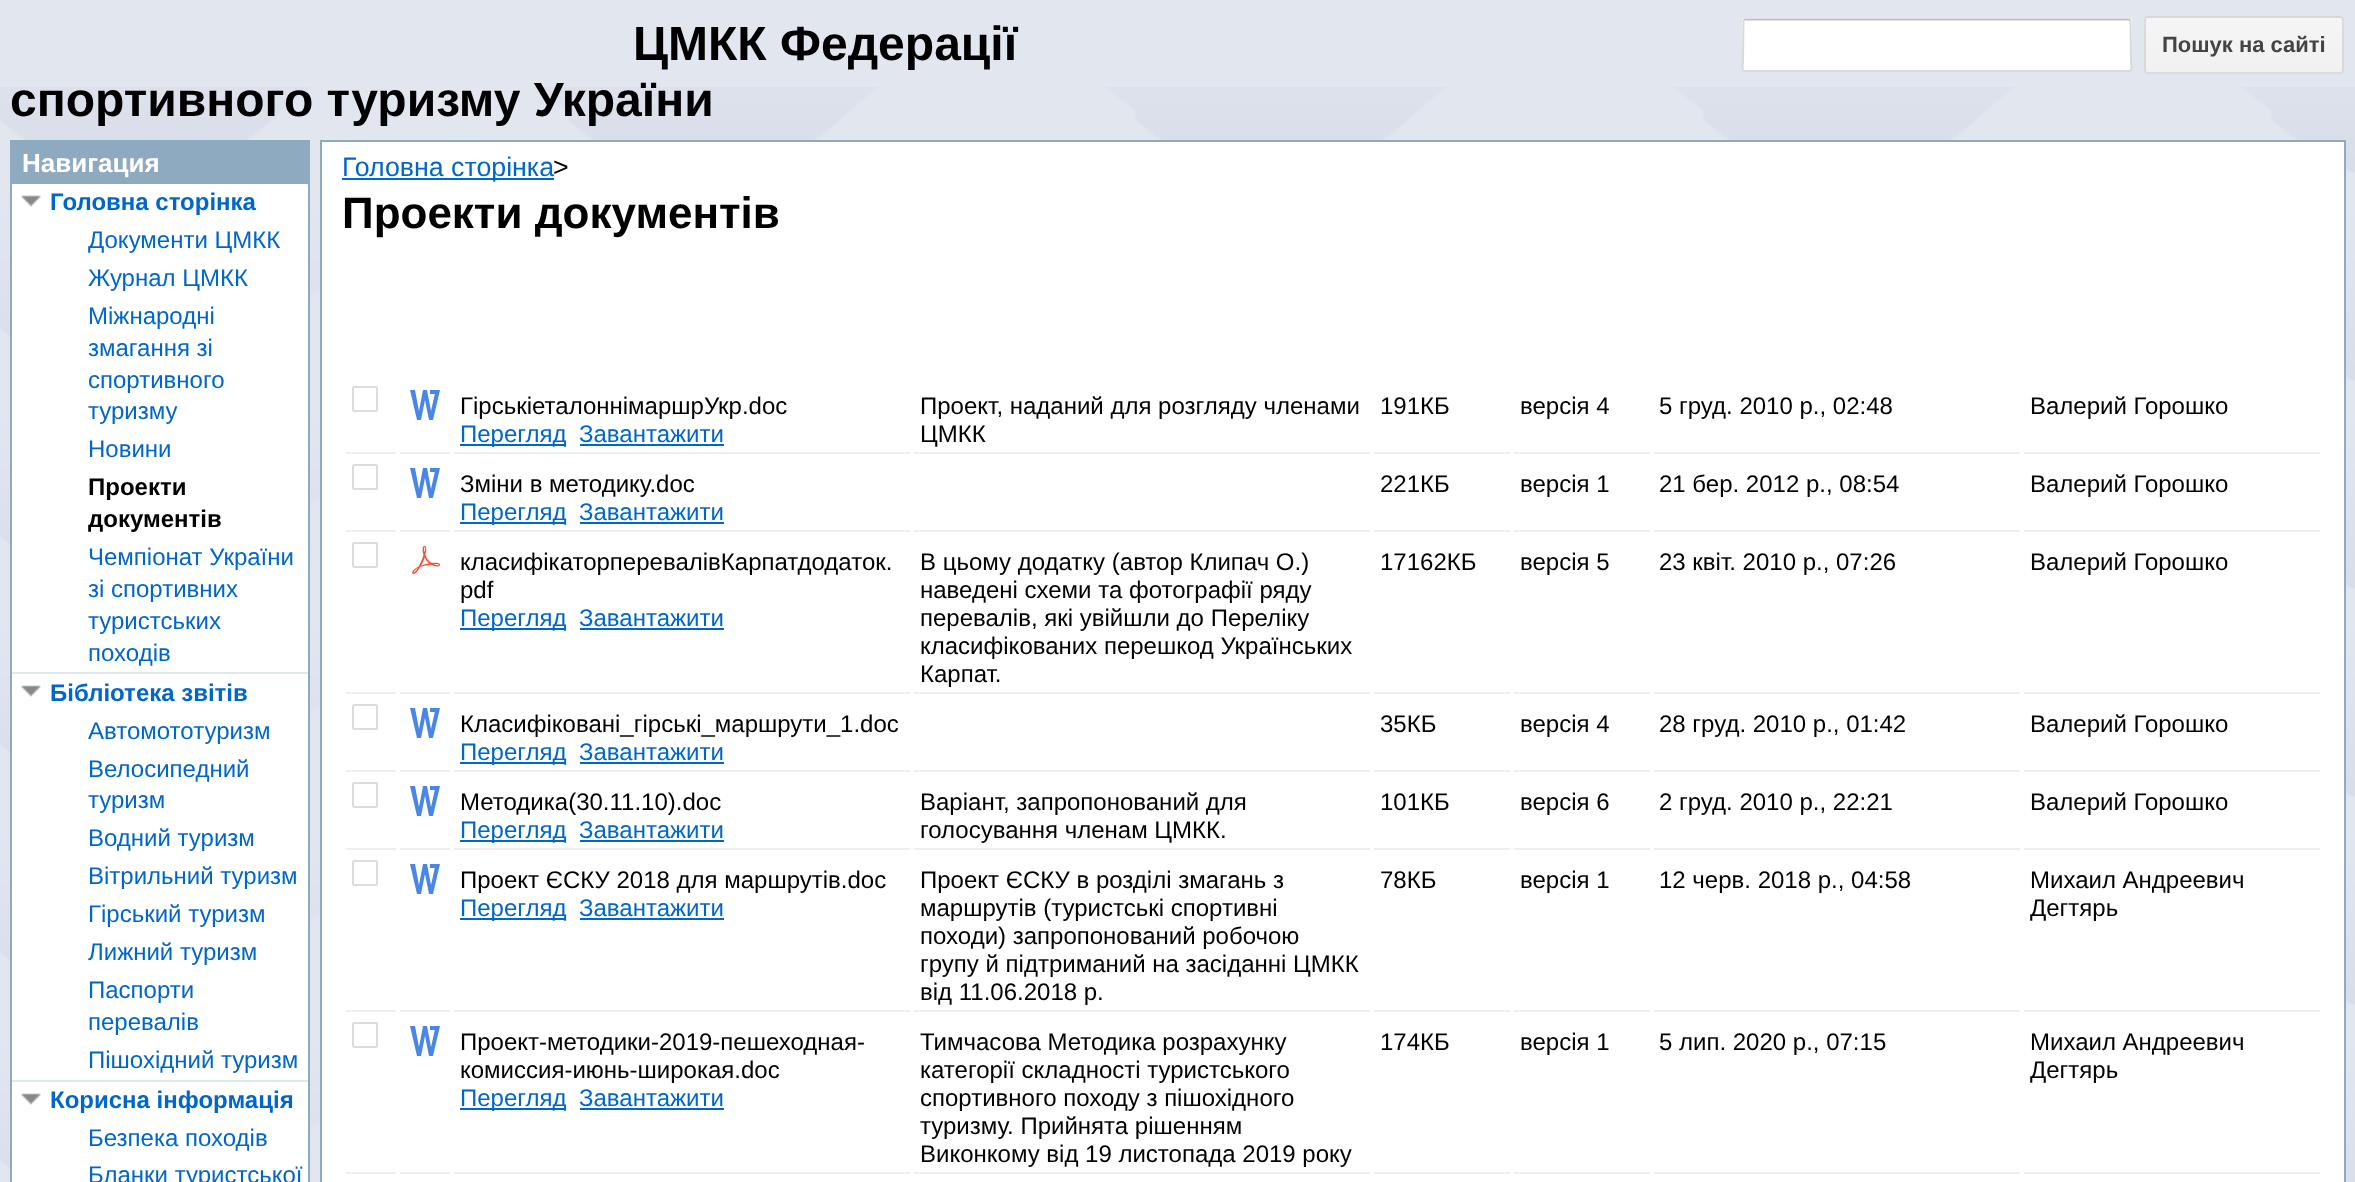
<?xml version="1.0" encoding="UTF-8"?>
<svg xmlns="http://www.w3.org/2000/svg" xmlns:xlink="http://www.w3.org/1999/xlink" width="2355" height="1182">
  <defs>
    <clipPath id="clip1"><rect x="2144" y="16" width="200" height="58" rx="4" /></clipPath>
    <linearGradient id="g1" gradientUnits="userSpaceOnUse" x1="2244" y1="-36" x2="2244" y2="18"><stop offset="0" stop-color="#f5f5f5" /><stop offset="1" stop-color="#f1f1f1" /></linearGradient>
    <linearGradient id="g2" gradientUnits="userSpaceOnUse" x1="2244" y1="18" x2="2244" y2="72"><stop offset="0" stop-color="#f5f5f5" /><stop offset="1" stop-color="#f1f1f1" /></linearGradient>
    <linearGradient id="g3" gradientUnits="userSpaceOnUse" x1="2244" y1="72" x2="2244" y2="126"><stop offset="0" stop-color="#f5f5f5" /><stop offset="1" stop-color="#f1f1f1" /></linearGradient>
  </defs>
  <rect width="100%" height="100%" fill="#e1e6ef" />
  <image x="0" y="87" width="2355" height="1095" xlink:href="image1.png" />
  <rect x="1742" y="18" width="390" height="54" rx="2" fill="#ffffff" />
  <path d="M 1743.5 19.5 h 387" fill="none" stroke="#c0c0c0" stroke-width="2" />
  <path d="M 2130.5 19.5 l 0.5 42 c 0 0.5 1.5 9.5 -1 9.5 h -386 c -2.5 0 -1 -9 -1 -9.5 l 0.5 -42" fill="none" stroke="#d9d9d9" stroke-width="2" />
  <g clip-path="url(#clip1)">
    <rect x="2144" y="16" width="200" height="2" fill="url(#g1)" />
    <rect x="2144" y="18" width="200" height="54" fill="url(#g2)" />
    <rect x="2144" y="72" width="200" height="2" fill="url(#g3)" />
  </g>
  <rect x="2145" y="17" width="198" height="56" rx="3" fill="none" stroke="#000000" stroke-opacity="0.1" stroke-width="2" />
  <rect x="12" y="184" width="296" height="998" fill="#ffffff" />
  <rect x="11" y="141" width="298" height="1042" fill="none" stroke="#8eaac0" stroke-width="2" />
  <rect x="12" y="142" width="296" height="42" fill="#8eaac0" />
  <image x="21" y="195" width="20" height="12" xlink:href="image2.png" />
  <rect x="12" y="672" width="296" height="2" fill="#dee8e9" />
  <image x="21" y="685" width="20" height="12" xlink:href="image2.png" />
  <rect x="12" y="1080" width="296" height="2" fill="#dee8e9" />
  <image x="21" y="1093" width="20" height="12" xlink:href="image2.png" />
  <rect x="321" y="141" width="2024" height="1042" fill="#ffffff" stroke="#8eaac0" stroke-width="2" />
  <rect x="342" y="178" width="212" height="2" fill="#0066cc" />
  <rect x="346" y="452" width="50" height="2" fill="#eeeeee" />
  <rect x="353" y="387" width="24" height="24" rx="1" fill="none" stroke="#dcdcdc" stroke-width="2" />
  <rect x="400" y="452" width="50" height="2" fill="#eeeeee" />
  <image x="410" y="390" width="30" height="30" xlink:href="image3.png" />
  <rect x="454" y="452" width="456" height="2" fill="#eeeeee" />
  <rect x="460" y="444" width="106" height="2" fill="#0066cc" />
  <rect x="580" y="444" width="144" height="2" fill="#0066cc" />
  <rect x="914" y="452" width="456" height="2" fill="#eeeeee" />
  <rect x="1374" y="452" width="136" height="2" fill="#eeeeee" />
  <rect x="1514" y="452" width="136" height="2" fill="#eeeeee" />
  <rect x="1654" y="452" width="366" height="2" fill="#eeeeee" />
  <rect x="2024" y="452" width="296" height="2" fill="#eeeeee" />
  <rect x="346" y="530" width="50" height="2" fill="#eeeeee" />
  <rect x="353" y="465" width="24" height="24" rx="1" fill="none" stroke="#dcdcdc" stroke-width="2" />
  <rect x="400" y="530" width="50" height="2" fill="#eeeeee" />
  <image x="410" y="468" width="30" height="30" xlink:href="image3.png" />
  <rect x="454" y="530" width="456" height="2" fill="#eeeeee" />
  <rect x="460" y="522" width="106" height="2" fill="#0066cc" />
  <rect x="580" y="522" width="144" height="2" fill="#0066cc" />
  <rect x="1374" y="530" width="136" height="2" fill="#eeeeee" />
  <rect x="1514" y="530" width="136" height="2" fill="#eeeeee" />
  <rect x="1654" y="530" width="366" height="2" fill="#eeeeee" />
  <rect x="2024" y="530" width="296" height="2" fill="#eeeeee" />
  <rect x="914" y="530" width="456" height="2" fill="#eeeeee" />
  <rect x="346" y="692" width="50" height="2" fill="#eeeeee" />
  <rect x="353" y="543" width="24" height="24" rx="1" fill="none" stroke="#dcdcdc" stroke-width="2" />
  <rect x="400" y="692" width="50" height="2" fill="#eeeeee" />
  <image x="412" y="546" width="28" height="28" xlink:href="image4.png" />
  <rect x="454" y="692" width="456" height="2" fill="#eeeeee" />
  <rect x="460" y="628" width="106" height="2" fill="#0066cc" />
  <rect x="580" y="628" width="144" height="2" fill="#0066cc" />
  <rect x="914" y="692" width="456" height="2" fill="#eeeeee" />
  <rect x="1374" y="692" width="136" height="2" fill="#eeeeee" />
  <rect x="1514" y="692" width="136" height="2" fill="#eeeeee" />
  <rect x="1654" y="692" width="366" height="2" fill="#eeeeee" />
  <rect x="2024" y="692" width="296" height="2" fill="#eeeeee" />
  <rect x="346" y="770" width="50" height="2" fill="#eeeeee" />
  <rect x="353" y="705" width="24" height="24" rx="1" fill="none" stroke="#dcdcdc" stroke-width="2" />
  <rect x="400" y="770" width="50" height="2" fill="#eeeeee" />
  <image x="410" y="708" width="30" height="30" xlink:href="image3.png" />
  <rect x="454" y="770" width="456" height="2" fill="#eeeeee" />
  <rect x="460" y="762" width="106" height="2" fill="#0066cc" />
  <rect x="580" y="762" width="144" height="2" fill="#0066cc" />
  <rect x="1374" y="770" width="136" height="2" fill="#eeeeee" />
  <rect x="1514" y="770" width="136" height="2" fill="#eeeeee" />
  <rect x="1654" y="770" width="366" height="2" fill="#eeeeee" />
  <rect x="2024" y="770" width="296" height="2" fill="#eeeeee" />
  <rect x="914" y="770" width="456" height="2" fill="#eeeeee" />
  <rect x="346" y="848" width="50" height="2" fill="#eeeeee" />
  <rect x="353" y="783" width="24" height="24" rx="1" fill="none" stroke="#dcdcdc" stroke-width="2" />
  <rect x="400" y="848" width="50" height="2" fill="#eeeeee" />
  <image x="410" y="786" width="30" height="30" xlink:href="image3.png" />
  <rect x="454" y="848" width="456" height="2" fill="#eeeeee" />
  <rect x="460" y="840" width="106" height="2" fill="#0066cc" />
  <rect x="580" y="840" width="144" height="2" fill="#0066cc" />
  <rect x="914" y="848" width="456" height="2" fill="#eeeeee" />
  <rect x="1374" y="848" width="136" height="2" fill="#eeeeee" />
  <rect x="1514" y="848" width="136" height="2" fill="#eeeeee" />
  <rect x="1654" y="848" width="366" height="2" fill="#eeeeee" />
  <rect x="2024" y="848" width="296" height="2" fill="#eeeeee" />
  <rect x="346" y="1010" width="50" height="2" fill="#eeeeee" />
  <rect x="353" y="861" width="24" height="24" rx="1" fill="none" stroke="#dcdcdc" stroke-width="2" />
  <rect x="400" y="1010" width="50" height="2" fill="#eeeeee" />
  <image x="410" y="864" width="30" height="30" xlink:href="image3.png" />
  <rect x="454" y="1010" width="456" height="2" fill="#eeeeee" />
  <rect x="460" y="918" width="106" height="2" fill="#0066cc" />
  <rect x="580" y="918" width="144" height="2" fill="#0066cc" />
  <rect x="914" y="1010" width="456" height="2" fill="#eeeeee" />
  <rect x="1374" y="1010" width="136" height="2" fill="#eeeeee" />
  <rect x="1514" y="1010" width="136" height="2" fill="#eeeeee" />
  <rect x="1654" y="1010" width="366" height="2" fill="#eeeeee" />
  <rect x="2024" y="1010" width="296" height="2" fill="#eeeeee" />
  <rect x="346" y="1172" width="50" height="2" fill="#eeeeee" />
  <rect x="353" y="1023" width="24" height="24" rx="1" fill="none" stroke="#dcdcdc" stroke-width="2" />
  <rect x="400" y="1172" width="50" height="2" fill="#eeeeee" />
  <image x="410" y="1026" width="30" height="30" xlink:href="image3.png" />
  <rect x="454" y="1172" width="456" height="2" fill="#eeeeee" />
  <rect x="460" y="1108" width="106" height="2" fill="#0066cc" />
  <rect x="580" y="1108" width="144" height="2" fill="#0066cc" />
  <rect x="914" y="1172" width="456" height="2" fill="#eeeeee" />
  <rect x="1374" y="1172" width="136" height="2" fill="#eeeeee" />
  <rect x="1514" y="1172" width="136" height="2" fill="#eeeeee" />
  <rect x="1654" y="1172" width="366" height="2" fill="#eeeeee" />
  <rect x="2024" y="1172" width="296" height="2" fill="#eeeeee" />
  <text x="633" y="60" style="font-family: Liberation Sans; font-size: 48px; font-weight: bold; fill: #000000">ЦМКК Федерації</text>
  <text x="10" y="116" style="font-family: Liberation Sans; font-size: 48px; font-weight: bold; fill: #000000">спортивного туризму України</text>
  <text x="2162" y="52" style="font-family: Liberation Sans; font-size: 22px; font-weight: bold; fill: #444444">Пошук на сайті</text>
  <text x="22" y="172" style="font-family: Liberation Sans; font-size: 26px; font-weight: bold; fill: #ffffff">Навигация</text>
  <text x="50" y="210" style="font-family: Liberation Sans; font-size: 24px; font-weight: bold; fill: #0066cc">Головна сторінка</text>
  <text x="88" y="248" style="font-family: Liberation Sans; font-size: 24px; fill: #0066cc">Документи ЦМКК</text>
  <text x="88" y="286" style="font-family: Liberation Sans; font-size: 24px; fill: #0066cc">Журнал ЦМКК</text>
  <text x="88" y="324" style="font-family: Liberation Sans; font-size: 24px; fill: #0066cc">Міжнародні</text>
  <text x="88" y="356" style="font-family: Liberation Sans; font-size: 24px; fill: #0066cc">змагання зі</text>
  <text x="88" y="388" style="font-family: Liberation Sans; font-size: 24px; fill: #0066cc">спортивного</text>
  <text x="88" y="419" style="font-family: Liberation Sans; font-size: 24px; fill: #0066cc">туризму</text>
  <text x="88" y="457" style="font-family: Liberation Sans; font-size: 24px; fill: #0066cc">Новини</text>
  <text x="88" y="495" style="font-family: Liberation Sans; font-size: 24px; font-weight: bold; fill: #000000">Проекти</text>
  <text x="88" y="527" style="font-family: Liberation Sans; font-size: 24px; font-weight: bold; fill: #000000">документів</text>
  <text x="88" y="565" style="font-family: Liberation Sans; font-size: 24px; fill: #0066cc">Чемпіонат України</text>
  <text x="88" y="597" style="font-family: Liberation Sans; font-size: 24px; fill: #0066cc">зі спортивних</text>
  <text x="88" y="629" style="font-family: Liberation Sans; font-size: 24px; fill: #0066cc">туристських</text>
  <text x="88" y="661" style="font-family: Liberation Sans; font-size: 24px; fill: #0066cc">походів</text>
  <text x="50" y="701" style="font-family: Liberation Sans; font-size: 24px; font-weight: bold; fill: #0066cc">Бібліотека звітів</text>
  <text x="88" y="739" style="font-family: Liberation Sans; font-size: 24px; fill: #0066cc">Автомототуризм</text>
  <text x="88" y="777" style="font-family: Liberation Sans; font-size: 24px; fill: #0066cc">Велосипедний</text>
  <text x="88" y="808" style="font-family: Liberation Sans; font-size: 24px; fill: #0066cc">туризм</text>
  <text x="88" y="846" style="font-family: Liberation Sans; font-size: 24px; fill: #0066cc">Водний туризм</text>
  <text x="88" y="884" style="font-family: Liberation Sans; font-size: 24px; fill: #0066cc">Вітрильний туризм</text>
  <text x="88" y="922" style="font-family: Liberation Sans; font-size: 24px; fill: #0066cc">Гірський туризм</text>
  <text x="88" y="960" style="font-family: Liberation Sans; font-size: 24px; fill: #0066cc">Лижний туризм</text>
  <text x="88" y="998" style="font-family: Liberation Sans; font-size: 24px; fill: #0066cc">Паспорти</text>
  <text x="88" y="1030" style="font-family: Liberation Sans; font-size: 24px; fill: #0066cc">перевалів</text>
  <text x="88" y="1068" style="font-family: Liberation Sans; font-size: 24px; fill: #0066cc">Пішохідний туризм</text>
  <text x="50" y="1108" style="font-family: Liberation Sans; font-size: 24px; font-weight: bold; fill: #0066cc">Корисна інформація</text>
  <text x="88" y="1146" style="font-family: Liberation Sans; font-size: 24px; fill: #0066cc">Безпека походів</text>
  <text x="88" y="1183" style="font-family: Liberation Sans; font-size: 24px; fill: #0066cc">Бланки туристської</text>
  <text x="342" y="176" style="font-family: Liberation Sans; font-size: 26.75px; fill: #0066cc">Головна сторінка</text>
  <text x="553" y="176" style="font-family: Liberation Sans; font-size: 26.75px; fill: #000000"> &gt; </text>
  <text x="342" y="228" style="font-family: Liberation Sans; font-size: 44px; font-weight: bold; fill: #000000">Проекти документів</text>
  <text x="460" y="414" style="font-family: Liberation Sans; font-size: 24px; fill: #000000">ГірськіеталоннiмаршрУкр.doc</text>
  <text x="460" y="442" style="font-family: Liberation Sans; font-size: 24px; fill: #0066cc">Перегляд</text>
  <text x="579" y="442" style="font-family: Liberation Sans; font-size: 24px; fill: #0066cc">Завантажити</text>
  <text x="920" y="414" style="font-family: Liberation Sans; font-size: 24px; fill: #000000">Проект, наданий для розгляду членами</text>
  <text x="920" y="442" style="font-family: Liberation Sans; font-size: 24px; fill: #000000">ЦМКК</text>
  <text x="1380" y="414" style="font-family: Liberation Sans; font-size: 24px; fill: #000000">191КБ</text>
  <text x="1520" y="414" style="font-family: Liberation Sans; font-size: 24px; fill: #000000">версія 4</text>
  <text x="1659" y="414" style="font-family: Liberation Sans; font-size: 24px; fill: #000000">5 груд. 2010 р., 02:48</text>
  <text x="2030" y="414" style="font-family: Liberation Sans; font-size: 24px; fill: #000000">Валерий Горошко</text>
  <text x="460" y="492" style="font-family: Liberation Sans; font-size: 24px; fill: #000000">Зміни в методику.doc</text>
  <text x="460" y="520" style="font-family: Liberation Sans; font-size: 24px; fill: #0066cc">Перегляд</text>
  <text x="579" y="520" style="font-family: Liberation Sans; font-size: 24px; fill: #0066cc">Завантажити</text>
  <text x="1380" y="492" style="font-family: Liberation Sans; font-size: 24px; fill: #000000">221КБ</text>
  <text x="1520" y="492" style="font-family: Liberation Sans; font-size: 24px; fill: #000000">версія 1</text>
  <text x="1659" y="492" style="font-family: Liberation Sans; font-size: 24px; fill: #000000">21 бер. 2012 р., 08:54</text>
  <text x="2030" y="492" style="font-family: Liberation Sans; font-size: 24px; fill: #000000">Валерий Горошко</text>
  <text x="460" y="570" style="font-family: Liberation Sans; font-size: 24px; fill: #000000">класифікаторперевалівКарпатдодаток.</text>
  <text x="460" y="598" style="font-family: Liberation Sans; font-size: 24px; fill: #000000">pdf</text>
  <text x="460" y="626" style="font-family: Liberation Sans; font-size: 24px; fill: #0066cc">Перегляд</text>
  <text x="579" y="626" style="font-family: Liberation Sans; font-size: 24px; fill: #0066cc">Завантажити</text>
  <text x="920" y="570" style="font-family: Liberation Sans; font-size: 24px; fill: #000000">В цьому додатку (автор Клипач О.)</text>
  <text x="920" y="598" style="font-family: Liberation Sans; font-size: 24px; fill: #000000">наведені схеми та фотографії ряду</text>
  <text x="920" y="626" style="font-family: Liberation Sans; font-size: 24px; fill: #000000">перевалів, які увійшли до Переліку</text>
  <text x="920" y="654" style="font-family: Liberation Sans; font-size: 24px; fill: #000000">класифікованих перешкод Українських</text>
  <text x="920" y="682" style="font-family: Liberation Sans; font-size: 24px; fill: #000000">Карпат.</text>
  <text x="1380" y="570" style="font-family: Liberation Sans; font-size: 24px; fill: #000000">17162КБ</text>
  <text x="1520" y="570" style="font-family: Liberation Sans; font-size: 24px; fill: #000000">версія 5</text>
  <text x="1659" y="570" style="font-family: Liberation Sans; font-size: 24px; fill: #000000">23 квіт. 2010 р., 07:26</text>
  <text x="2030" y="570" style="font-family: Liberation Sans; font-size: 24px; fill: #000000">Валерий Горошко</text>
  <text x="460" y="732" style="font-family: Liberation Sans; font-size: 24px; fill: #000000">Класифіковані_гірські_маршрути_1.doc</text>
  <text x="460" y="760" style="font-family: Liberation Sans; font-size: 24px; fill: #0066cc">Перегляд</text>
  <text x="579" y="760" style="font-family: Liberation Sans; font-size: 24px; fill: #0066cc">Завантажити</text>
  <text x="1380" y="732" style="font-family: Liberation Sans; font-size: 24px; fill: #000000">35КБ</text>
  <text x="1520" y="732" style="font-family: Liberation Sans; font-size: 24px; fill: #000000">версія 4</text>
  <text x="1659" y="732" style="font-family: Liberation Sans; font-size: 24px; fill: #000000">28 груд. 2010 р., 01:42</text>
  <text x="2030" y="732" style="font-family: Liberation Sans; font-size: 24px; fill: #000000">Валерий Горошко</text>
  <text x="460" y="810" style="font-family: Liberation Sans; font-size: 24px; fill: #000000">Методика(30.11.10).doc</text>
  <text x="460" y="838" style="font-family: Liberation Sans; font-size: 24px; fill: #0066cc">Перегляд</text>
  <text x="579" y="838" style="font-family: Liberation Sans; font-size: 24px; fill: #0066cc">Завантажити</text>
  <text x="920" y="810" style="font-family: Liberation Sans; font-size: 24px; fill: #000000">Варіант, запропонований для</text>
  <text x="920" y="838" style="font-family: Liberation Sans; font-size: 24px; fill: #000000">голосування членам ЦМКК.</text>
  <text x="1380" y="810" style="font-family: Liberation Sans; font-size: 24px; fill: #000000">101КБ</text>
  <text x="1520" y="810" style="font-family: Liberation Sans; font-size: 24px; fill: #000000">версія 6</text>
  <text x="1659" y="810" style="font-family: Liberation Sans; font-size: 24px; fill: #000000">2 груд. 2010 р., 22:21</text>
  <text x="2030" y="810" style="font-family: Liberation Sans; font-size: 24px; fill: #000000">Валерий Горошко</text>
  <text x="460" y="888" style="font-family: Liberation Sans; font-size: 24px; fill: #000000">Проект ЄСКУ 2018 для маршрутів.doc</text>
  <text x="460" y="916" style="font-family: Liberation Sans; font-size: 24px; fill: #0066cc">Перегляд</text>
  <text x="579" y="916" style="font-family: Liberation Sans; font-size: 24px; fill: #0066cc">Завантажити</text>
  <text x="920" y="888" style="font-family: Liberation Sans; font-size: 24px; fill: #000000">Проект ЄСКУ в розділі змагань з</text>
  <text x="920" y="916" style="font-family: Liberation Sans; font-size: 24px; fill: #000000">маршрутів (туристські спортивні</text>
  <text x="920" y="944" style="font-family: Liberation Sans; font-size: 24px; fill: #000000">походи) запропонований робочою</text>
  <text x="920" y="972" style="font-family: Liberation Sans; font-size: 24px; fill: #000000">групу й підтриманий на засіданні ЦМКК</text>
  <text x="920" y="1000" style="font-family: Liberation Sans; font-size: 24px; fill: #000000">від 11.06.2018 р.</text>
  <text x="1380" y="888" style="font-family: Liberation Sans; font-size: 24px; fill: #000000">78КБ</text>
  <text x="1520" y="888" style="font-family: Liberation Sans; font-size: 24px; fill: #000000">версія 1</text>
  <text x="1659" y="888" style="font-family: Liberation Sans; font-size: 24px; fill: #000000">12 черв. 2018 р., 04:58</text>
  <text x="2030" y="888" style="font-family: Liberation Sans; font-size: 24px; fill: #000000">Михаил Андреевич</text>
  <text x="2030" y="916" style="font-family: Liberation Sans; font-size: 24px; fill: #000000">Дегтярь</text>
  <text x="460" y="1050" style="font-family: Liberation Sans; font-size: 24px; fill: #000000">Проект-методики-2019-пешеходная-</text>
  <text x="460" y="1078" style="font-family: Liberation Sans; font-size: 24px; fill: #000000">комиссия-июнь-широкая.doc</text>
  <text x="460" y="1106" style="font-family: Liberation Sans; font-size: 24px; fill: #0066cc">Перегляд</text>
  <text x="579" y="1106" style="font-family: Liberation Sans; font-size: 24px; fill: #0066cc">Завантажити</text>
  <text x="920" y="1050" style="font-family: Liberation Sans; font-size: 24px; fill: #000000">Тимчасова Методика розрахунку</text>
  <text x="920" y="1078" style="font-family: Liberation Sans; font-size: 24px; fill: #000000">категорії складності туристського</text>
  <text x="920" y="1106" style="font-family: Liberation Sans; font-size: 24px; fill: #000000">спортивного походу з пішохідного</text>
  <text x="920" y="1134" style="font-family: Liberation Sans; font-size: 24px; fill: #000000">туризму. Прийнята рішенням</text>
  <text x="920" y="1162" style="font-family: Liberation Sans; font-size: 24px; fill: #000000">Виконкому від 19 листопада 2019 року</text>
  <text x="1380" y="1050" style="font-family: Liberation Sans; font-size: 24px; fill: #000000">174КБ</text>
  <text x="1520" y="1050" style="font-family: Liberation Sans; font-size: 24px; fill: #000000">версія 1</text>
  <text x="1659" y="1050" style="font-family: Liberation Sans; font-size: 24px; fill: #000000">5 лип. 2020 р., 07:15</text>
  <text x="2030" y="1050" style="font-family: Liberation Sans; font-size: 24px; fill: #000000">Михаил Андреевич</text>
  <text x="2030" y="1078" style="font-family: Liberation Sans; font-size: 24px; fill: #000000">Дегтярь</text>
</svg>
